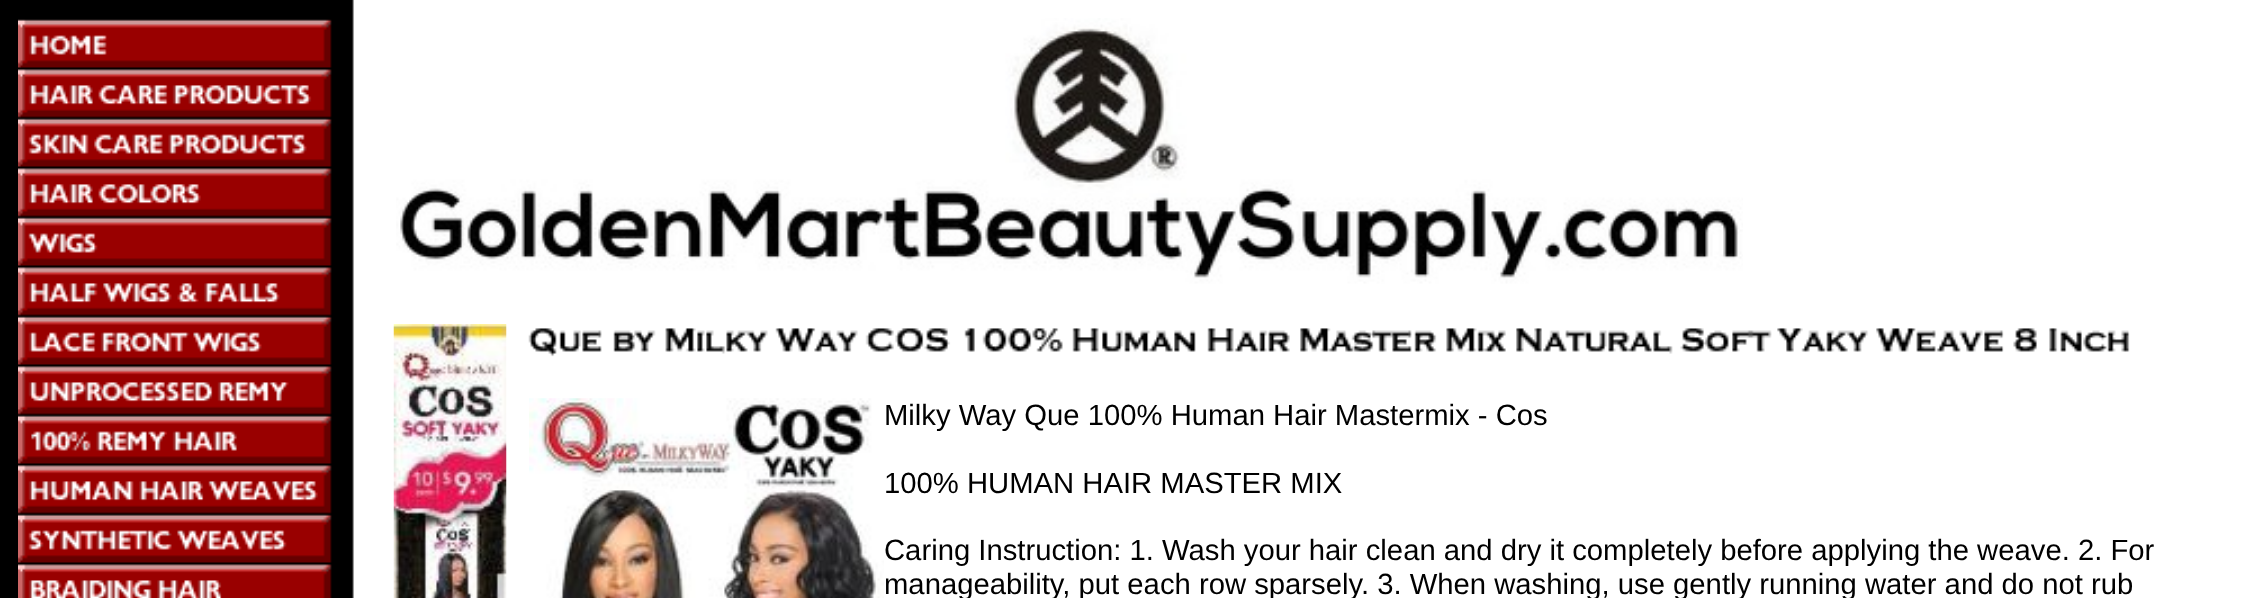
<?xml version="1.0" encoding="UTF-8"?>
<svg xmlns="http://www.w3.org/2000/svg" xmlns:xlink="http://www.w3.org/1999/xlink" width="2267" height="598">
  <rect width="100%" height="100%" fill="#ffffff" />
  <image x="0" y="0" width="354" height="598" xlink:href="image1.png" />
  <image x="18" y="19" width="314" height="579" xlink:href="image2.png" />
  <image x="396" y="18" width="1347" height="266" xlink:href="image3.png" />
  <image x="393" y="324" width="114" height="274" xlink:href="image4.png" />
  <image x="528" y="328" width="1602" height="29" xlink:href="image5.png" />
  <image x="529" y="398" width="355" height="200" xlink:href="image6.png" />
  <text x="884" y="425" style="font-family: Liberation Sans; font-size: 29.25px; fill: #000000">Milky Way Que 100% Human Hair Mastermix - Cos</text>
  <text x="884" y="493" style="font-family: Liberation Sans; font-size: 29.25px; fill: #000000">100% HUMAN HAIR MASTER MIX</text>
  <text x="884" y="560" style="font-family: Liberation Sans; font-size: 29.25px; fill: #000000">Caring Instruction: 1. Wash your hair clean and dry it completely before applying the weave. 2. For</text>
  <text x="884" y="594" style="font-family: Liberation Sans; font-size: 29.25px; fill: #000000">manageability, put each row sparsely. 3. When washing, use gently running water and do not rub</text>
</svg>
